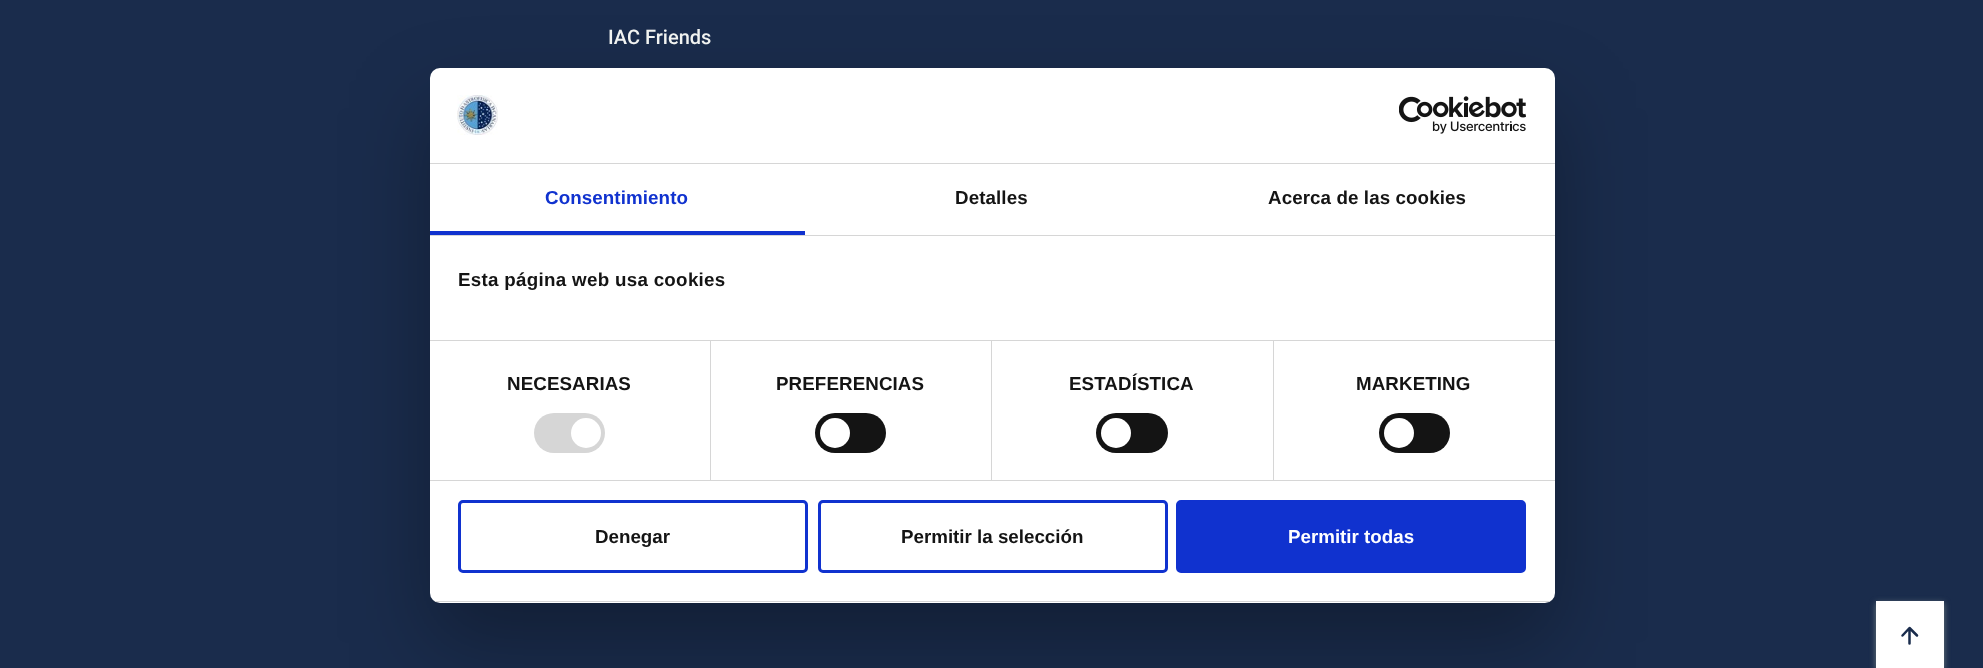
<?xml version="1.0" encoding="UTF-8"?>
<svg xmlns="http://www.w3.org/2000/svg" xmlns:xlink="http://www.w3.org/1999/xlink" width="1983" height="668">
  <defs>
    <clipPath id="clip1"><rect x="430" y="68" width="1125" height="535" rx="10" /></clipPath>
  </defs>
  <rect width="100%" height="100%" fill="#1a2c4c" />
  <rect x="1876" y="603" width="68" height="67" fill="#6f7e82" filter="blur(3px)" />
  <rect x="1876" y="601" width="68" height="67" fill="#ffffff" />
  <path d="M 1902.5 635.5 l 7 -7.5 l 7.5 7.5 m -7.5 -6.5 v 14.5" fill="none" stroke="#1a2c4c" stroke-width="2.5" stroke-linecap="round" stroke-linejoin="round" />
  <rect x="430" y="108" width="1125" height="535" rx="10" fill="#000000" fill-opacity="0.3" filter="blur(42.5px)" />
  <rect x="430" y="68" width="1125" height="535" rx="10" fill="#ffffff" />
  <rect x="430" y="163" width="1125" height="1" fill="#d6d6d6" />
  <image x="457" y="95" width="41" height="40" xlink:href="image1.png" />
  <image x="1399" y="96" width="127" height="38" xlink:href="image2.png" />
  <rect x="430" y="235" width="1125" height="1" fill="#d6d6d6" />
  <rect x="430" y="231" width="375" height="4" fill="#1032cf" />
  <rect x="430" y="340" width="1125" height="1" fill="#d6d6d6" />
  <rect x="430" y="480" width="1125" height="1" fill="#d6d6d6" />
  <rect x="710" y="341" width="1" height="139" fill="#d6d6d6" />
  <rect x="534" y="413" width="71" height="40" rx="20" fill="#d6d6d6" />
  <circle cx="586" cy="433" r="15" fill="#ffffff" />
  <rect x="991" y="341" width="1" height="139" fill="#d6d6d6" />
  <rect x="815" y="413" width="71" height="40" rx="20" fill="#141414" />
  <circle cx="835" cy="433" r="15" fill="#ffffff" />
  <rect x="1273" y="341" width="1" height="139" fill="#d6d6d6" />
  <rect x="1096" y="413" width="72" height="40" rx="20" fill="#141414" />
  <circle cx="1116" cy="433" r="15" fill="#ffffff" />
  <rect x="1379" y="413" width="71" height="40" rx="20" fill="#141414" />
  <circle cx="1399" cy="433" r="15" fill="#ffffff" />
  <g clip-path="url(#clip1)">
    <rect x="430" y="601" width="1125" height="1" fill="#d6d6d6" />
  </g>
  <rect x="459.5" y="501.5" width="347" height="70" rx="3.5" fill="none" stroke="#1032cf" stroke-width="3" />
  <rect x="819.5" y="501.5" width="347" height="70" rx="3.5" fill="none" stroke="#1032cf" stroke-width="3" />
  <rect x="1177.5" y="501.5" width="347" height="70" rx="3.5" fill="#1032cf" stroke="#1032cf" stroke-width="3" />
  <text x="608" y="44" style="font-family: Roboto; font-size: 20px; font-weight: 500; fill: #f1f3f1">IAC Friends</text>
  <text x="545" y="204" style="font-family: Liberation Sans; font-size: 18.75px; font-weight: bold; letter-spacing: 0.1px; fill: #1032cf">Consentimiento</text>
  <text x="955" y="204" style="font-family: Liberation Sans; font-size: 18.75px; font-weight: bold; letter-spacing: 0.1px; fill: #141414">Detalles</text>
  <text x="1268" y="204" style="font-family: Liberation Sans; font-size: 18.75px; font-weight: bold; letter-spacing: 0.1px; fill: #141414">Acerca de las cookies</text>
  <text x="458" y="286" style="font-family: Liberation Sans; font-size: 18.75px; font-weight: bold; letter-spacing: 0.3px; fill: #141414">Esta página web usa cookies</text>
  <text x="507" y="390" style="font-family: Liberation Sans; font-size: 18.75px; font-weight: bold; letter-spacing: 0.1px; fill: #141414">NECESARIAS</text>
  <text x="776" y="390" style="font-family: Liberation Sans; font-size: 18.75px; font-weight: bold; letter-spacing: 0.1px; fill: #141414">PREFERENCIAS</text>
  <text x="1069" y="390" style="font-family: Liberation Sans; font-size: 18.75px; font-weight: bold; letter-spacing: 0.1px; fill: #141414">ESTADÍSTICA</text>
  <text x="1356" y="390" style="font-family: Liberation Sans; font-size: 18.75px; font-weight: bold; letter-spacing: 0.1px; fill: #141414">MARKETING</text>
  <text x="595" y="543" style="font-family: Liberation Sans; font-size: 18.75px; font-weight: bold; fill: #141414">Denegar</text>
  <text x="901" y="543" style="font-family: Liberation Sans; font-size: 18.75px; font-weight: bold; fill: #141414">Permitir la selección</text>
  <text x="1288" y="543" style="font-family: Liberation Sans; font-size: 18.75px; font-weight: bold; fill: #ffffff">Permitir todas</text>
</svg>
